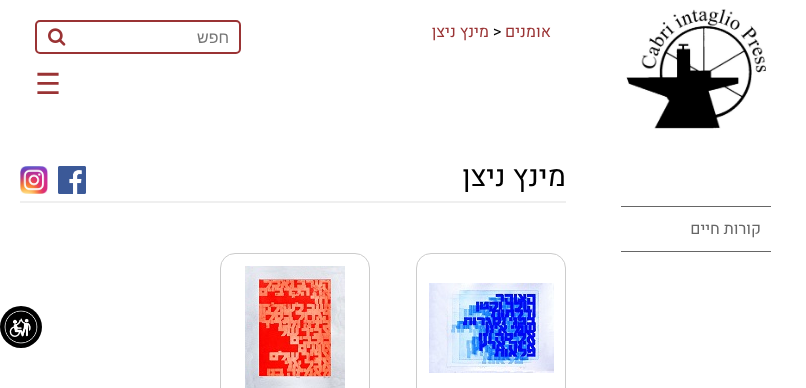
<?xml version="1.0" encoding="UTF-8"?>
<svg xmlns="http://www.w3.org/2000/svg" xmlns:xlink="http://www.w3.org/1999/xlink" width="806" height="388">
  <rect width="100%" height="100%" fill="#ffffff" />
  <image x="626" y="9" width="140" height="120" xlink:href="image1.png" />
  <rect x="36" y="21" width="204" height="32" rx="4" fill="none" stroke="#9a3334" stroke-width="2" />
  <image x="48" y="28" width="18" height="18" xlink:href="image2.png" />
  <image x="58" y="166" width="28" height="28" xlink:href="image3.png" />
  <image x="20" y="166" width="28" height="28" xlink:href="image4.png" />
  <rect x="20" y="201" width="546" height="2" fill="#efefef" />
  <rect x="416.5" y="253.5" width="149" height="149" rx="14.5" fill="none" stroke="#cccccc" />
  <image x="429" y="283" width="125" height="90" xlink:href="image5.png" />
  <rect x="220.5" y="253.5" width="149" height="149" rx="14.5" fill="none" stroke="#cccccc" />
  <image x="245" y="266" width="100" height="122" xlink:href="image6.png" />
  <rect x="621" y="206" width="150" height="1" fill="#666666" />
  <rect x="621" y="251" width="150" height="1" fill="#666666" />
  <circle cx="21" cy="327" r="21" fill="#000000" />
  <image x="4" y="310" width="34" height="34" xlink:href="image7.png" />
  <text x="551" y="37" style="font-family: Heebo; font-size: 16px; direction: rtl; fill: #9a3334">אומנים</text>
  <text x="493" y="37" style="font-family: Heebo; font-size: 16px; fill: #000000">&gt;</text>
  <text x="489" y="37" style="font-family: Heebo; font-size: 16px; direction: rtl; fill: #9a3334">מינץ ניצן</text>
  <text x="229" y="43" style="font-family: Liberation Sans; font-size: 16px; direction: rtl; fill: #757575">חפש</text>
  <text x="35" y="94" style="font-family: DejaVu Sans; font-size: 29px; fill: #9a3334">☰</text>
  <text x="566" y="186" style="font-family: Heebo; font-size: 29px; direction: rtl; fill: #000000">מינץ ניצן</text>
  <text x="761" y="234" style="font-family: Heebo; font-size: 16px; direction: rtl; fill: #666666">קורות חיים</text>
</svg>
